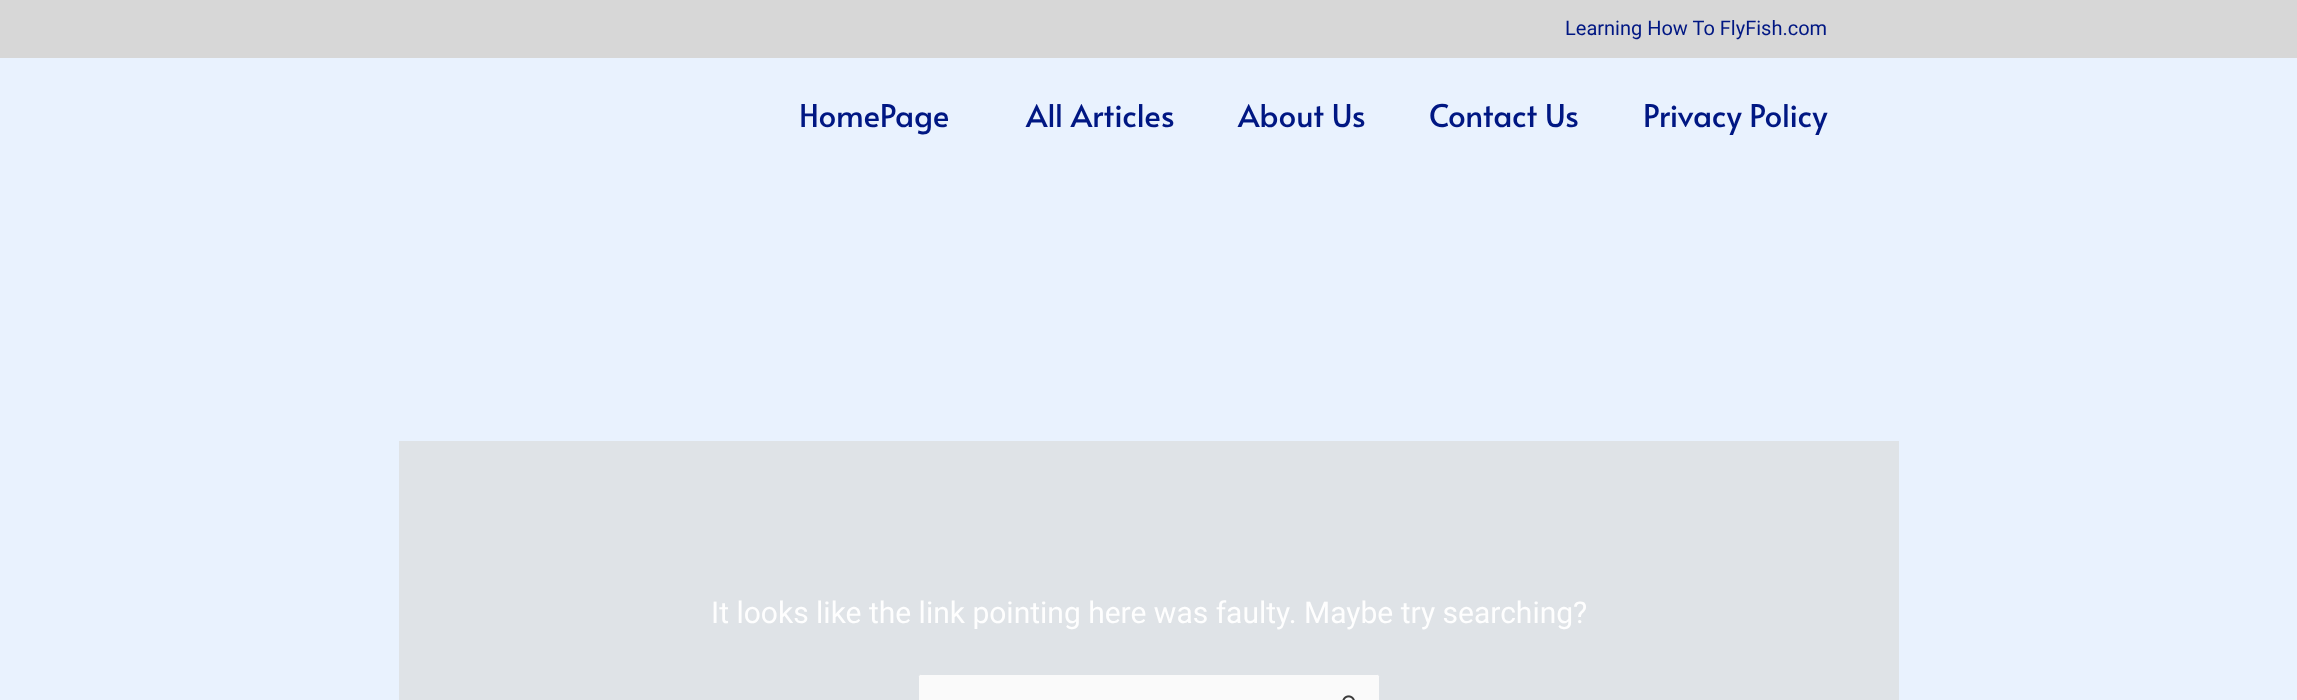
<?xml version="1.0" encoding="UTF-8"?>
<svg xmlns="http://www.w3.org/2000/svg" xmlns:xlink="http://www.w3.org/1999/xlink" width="2297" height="700">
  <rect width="100%" height="100%" fill="#e9f2fe" />
  <rect width="2297" height="58" fill="#d7d7d7" />
  <rect x="399" y="441" width="1500" height="259" fill="#dfe3e7" />
  <rect x="918.5" y="674.5" width="461" height="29" rx="2" fill="#fafafa" stroke="#dfe3e7" />
  <image x="1342" y="695" width="13" height="5" xlink:href="image1.png" />
  <text x="1565" y="35" style="font-family: Roboto; font-size: 20px; fill: #001783">Learning How To FlyFish.com</text>
  <text x="799" y="127" style="font-family: Alata; font-size: 31.25px; fill: #001783">HomePage</text>
  <text x="1026" y="127" style="font-family: Alata; font-size: 31.25px; fill: #001783">All Articles</text>
  <text x="1238" y="127" style="font-family: Alata; font-size: 31.25px; fill: #001783">About Us</text>
  <text x="1429" y="127" style="font-family: Alata; font-size: 31.25px; fill: #001783">Contact Us</text>
  <text x="1643" y="127" style="font-family: Alata; font-size: 31.25px; fill: #001783">Privacy Policy</text>
  <text x="711" y="623" style="font-family: Roboto; font-size: 30px; fill: #fefefe">It looks like the link pointing here was faulty. Maybe try searching?</text>
</svg>
